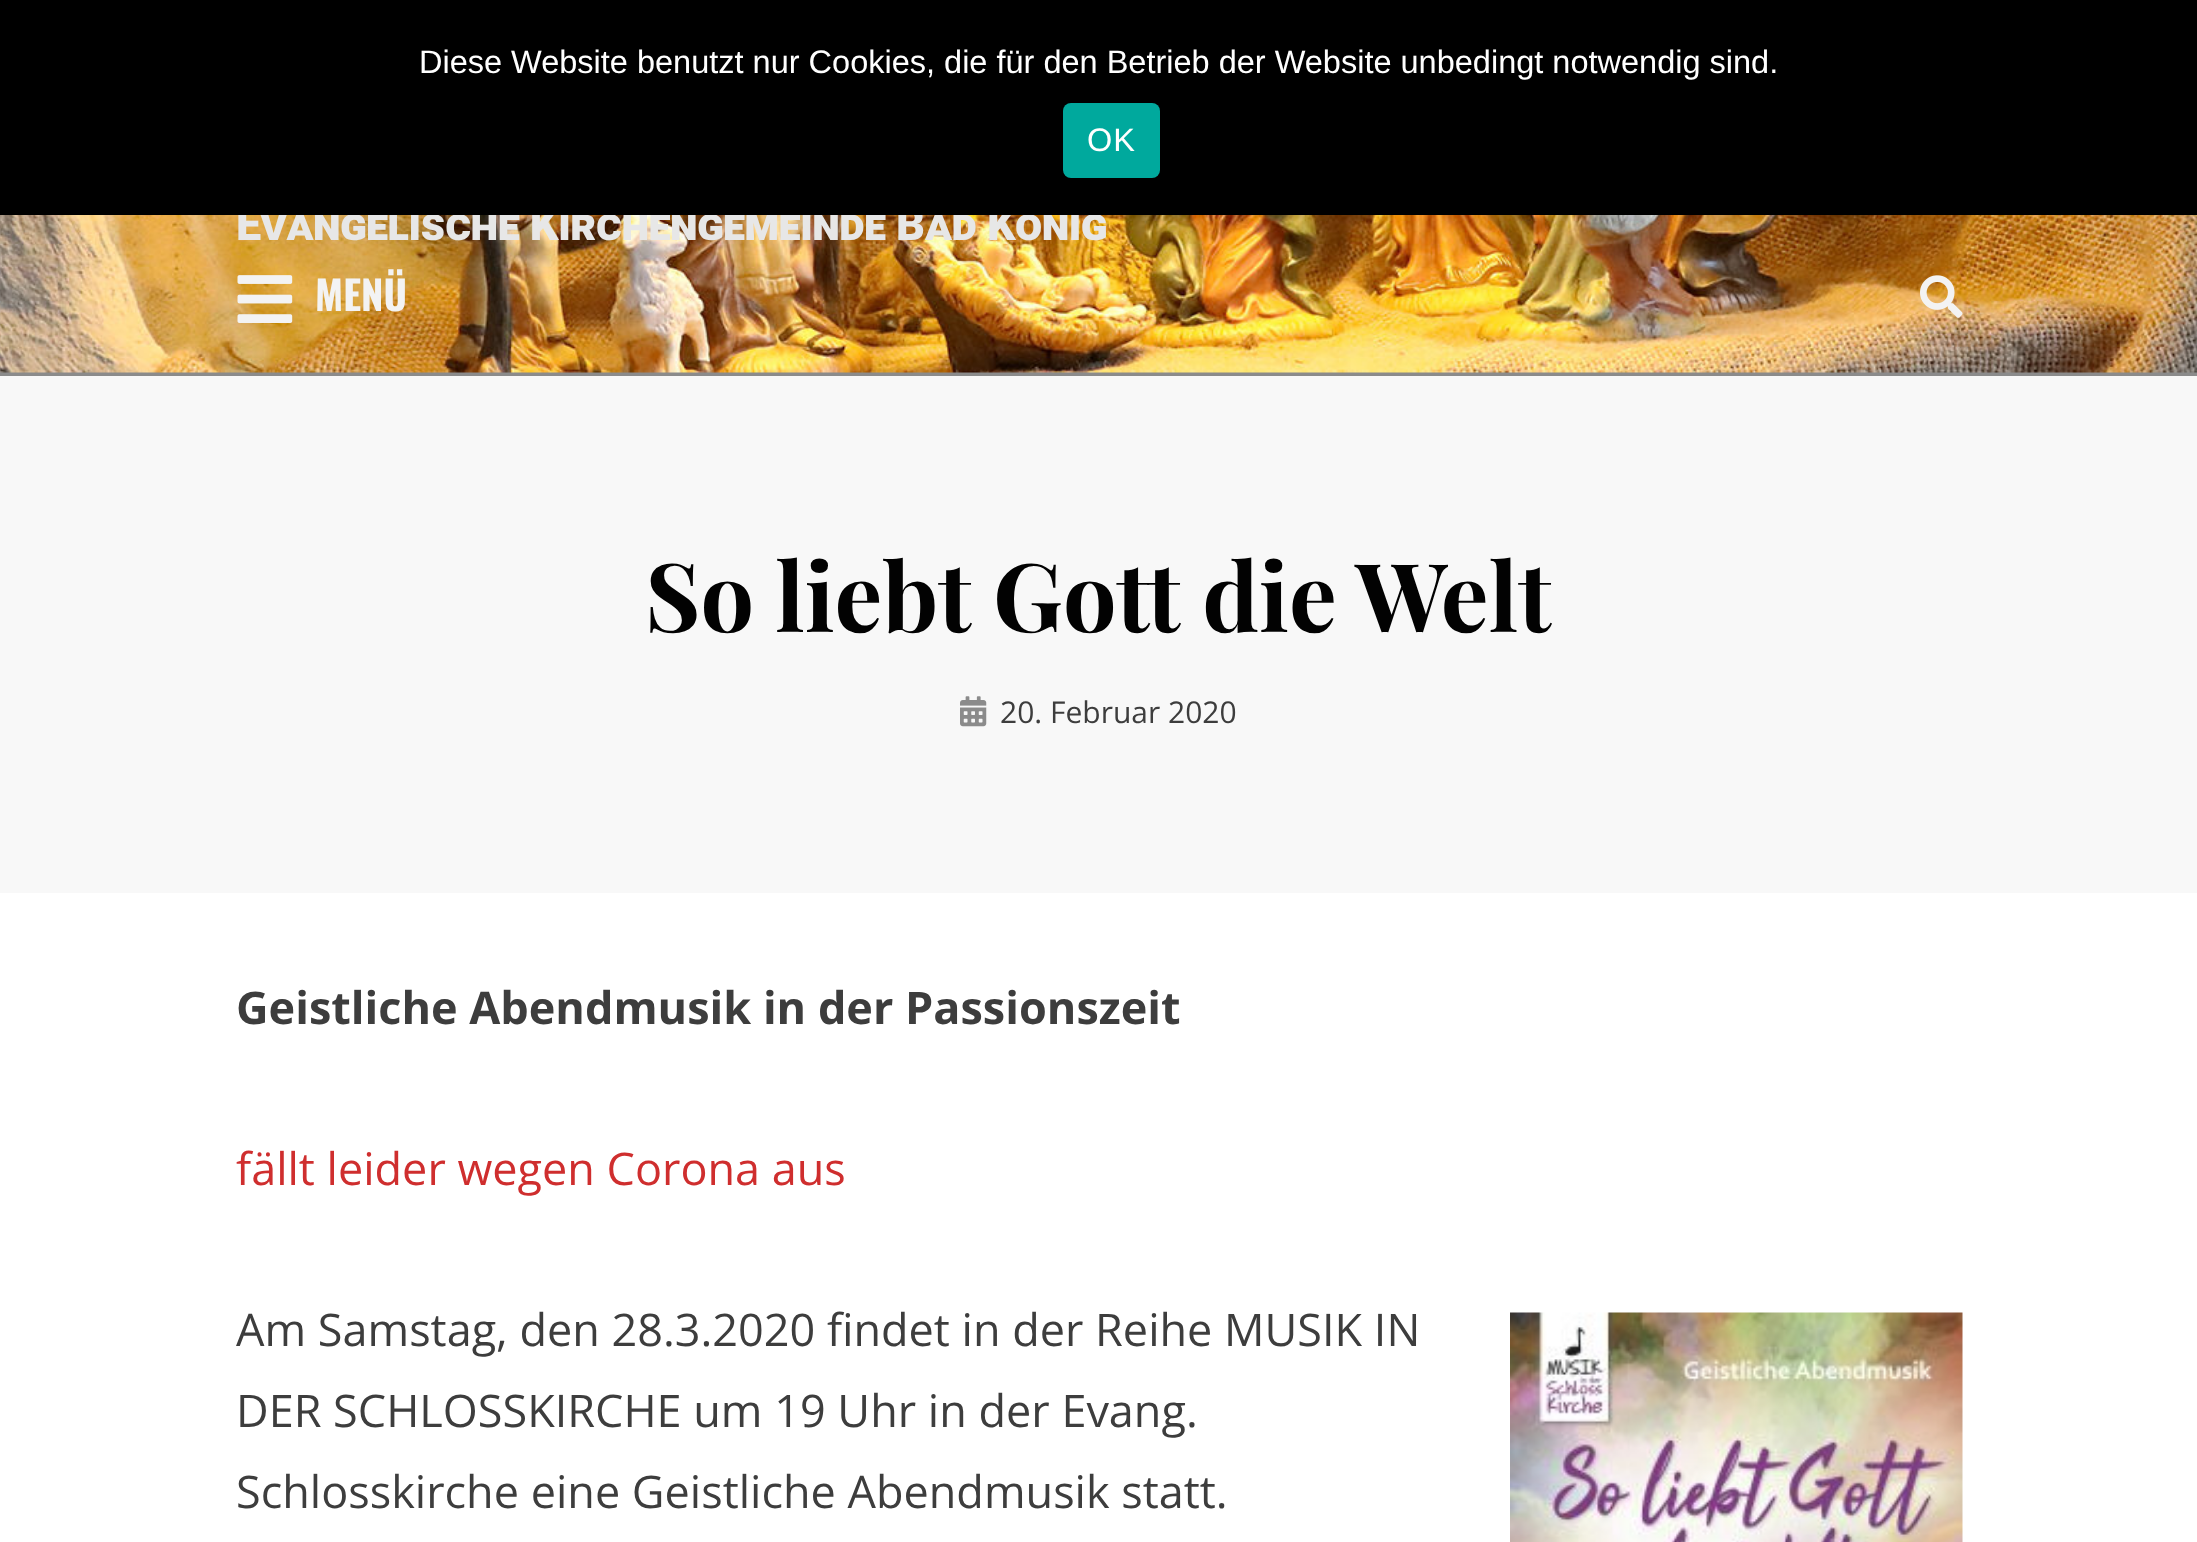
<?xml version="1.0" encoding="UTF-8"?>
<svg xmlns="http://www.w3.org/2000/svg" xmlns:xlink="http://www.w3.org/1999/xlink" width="2197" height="1542">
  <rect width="100%" height="100%" fill="#ffffff" />
  <rect y="372" width="2197" height="4" fill="#8b8b8b" />
  <image x="0" y="215" width="2197" height="158" xlink:href="image1.png" />
  <image x="237" y="275" width="56" height="48" xlink:href="image2.png" />
  <image x="1920" y="275" width="43" height="43" xlink:href="image3.png" />
  <rect y="376" width="2197" height="517" fill="#f8f8f8" />
  <image x="960" y="696" width="27" height="31" xlink:href="image4.png" />
  <image x="1510" y="1312" width="453" height="230" xlink:href="image5.png" />
  <text x="236" y="240" word-spacing="-1" style="font-family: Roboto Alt; font-size: 45px; font-weight: 900; fill: #e7e7e7">Evangelische Kirchengemeinde Bad König</text>
  <rect width="2197" height="215" fill="#000000" />
  <rect x="1063" y="103" width="97" height="75" rx="8" fill="#00a99d" />
  <text x="1087" y="151" style="font-family: Liberation Sans; font-size: 32.5px; letter-spacing: 1px; fill: #ffffff">OK</text>
  <text x="419" y="73" style="font-family: Liberation Sans; font-size: 32.5px; fill: #ffffff">Diese Website benutzt nur Cookies, die für den Betrieb der Website unbedingt notwendig sind.</text>
  <text x="315" y="311" style="font-family: Oswald; font-size: 40px; font-weight: bold; fill: #f3f3f3">MENÜ</text>
  <text x="645" y="632" style="font-family: Playfair Display; font-size: 95px; font-weight: bold; fill: #020202">So liebt Gott die Welt</text>
  <text x="1000" y="723" style="font-family: Open Sans; font-size: 30px; fill: #3d3d3d">20. Februar 2020</text>
  <text x="236" y="1024" style="font-family: Open Sans; font-size: 45px; font-weight: bold; fill: #3d3d3d">Geistliche Abendmusik in der Passionszeit</text>
  <text x="236" y="1185" style="font-family: Open Sans; font-size: 45px; fill: #cf2e2e">fällt leider wegen Corona aus</text>
  <text x="236" y="1346" style="font-family: Open Sans; font-size: 45px; fill: #3d3d3d">Am Samstag, den 28.3.2020 findet in der Reihe MUSIK IN</text>
  <text x="236" y="1427" style="font-family: Open Sans; font-size: 45px; fill: #3d3d3d">DER SCHLOSSKIRCHE um 19 Uhr in der Evang.</text>
  <text x="236" y="1508" style="font-family: Open Sans; font-size: 45px; fill: #3d3d3d">Schlosskirche eine Geistliche Abendmusik statt.</text>
</svg>
